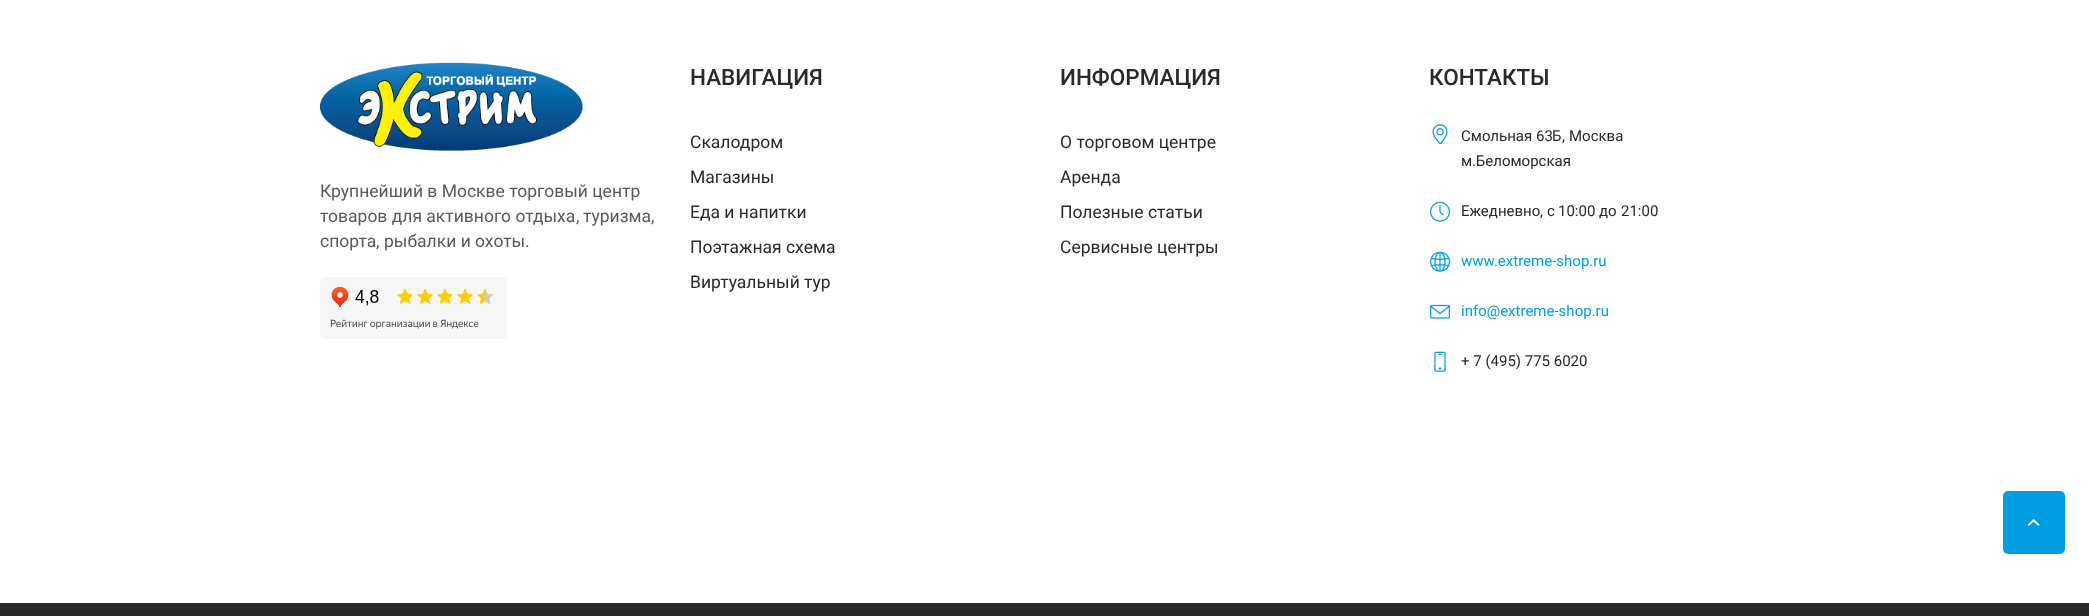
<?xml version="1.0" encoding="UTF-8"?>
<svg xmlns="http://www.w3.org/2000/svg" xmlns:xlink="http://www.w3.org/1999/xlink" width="2089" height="616">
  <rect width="100%" height="100%" fill="#ffffff" />
  <image x="320" y="62" width="263" height="89" xlink:href="image1.png" />
  <image x="320" y="277" width="187" height="62" xlink:href="image2.png" />
  <image x="1432" y="124" width="16" height="21" xlink:href="image3.png" />
  <image x="1430" y="201" width="20" height="21" xlink:href="image4.png" />
  <image x="1430" y="251" width="21" height="21" xlink:href="image5.png" />
  <image x="1430" y="304" width="20" height="15" xlink:href="image6.png" />
  <image x="1434" y="351" width="12" height="21" xlink:href="image7.png" />
  <rect x="2003" y="491" width="62" height="63" rx="5" fill="#009de0" />
  <image x="2027" y="519" width="13" height="7" xlink:href="image8.png" />
  <rect y="603" width="2089" height="13" fill="#292929" />
  <text x="320" y="197" style="font-family: Roboto; font-size: 17.5px; fill: #595959">Крупнейший в Москве торговый центр</text>
  <text x="320" y="222" style="font-family: Roboto; font-size: 17.5px; fill: #595959">товаров для активного отдыха</text>
  <text x="576" y="222" style="font-family: 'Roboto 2'; font-size: 17.5px; fill: #595959">,</text>
  <text x="583" y="222" style="font-family: Roboto; font-size: 17.5px; fill: #595959">туризма</text>
  <text x="651" y="222" style="font-family: 'Roboto 2'; font-size: 17.5px; fill: #595959">,</text>
  <text x="320" y="247" style="font-family: Roboto; font-size: 17.5px; fill: #595959">спорта</text>
  <text x="376" y="247" style="font-family: 'Roboto 2'; font-size: 17.5px; fill: #595959">,</text>
  <text x="384" y="247" style="font-family: Roboto; font-size: 17.5px; fill: #595959">рыбалки и охоты</text>
  <text x="525" y="247" style="font-family: 'Roboto 2'; font-size: 17.5px; fill: #595959">.</text>
  <text x="690" y="85" style="font-family: Roboto; font-size: 22.5px; font-weight: 500; fill: #292929">НАВИГАЦИЯ</text>
  <text x="690" y="148" style="font-family: Roboto; font-size: 17.5px; fill: #292929">Скалодром</text>
  <text x="690" y="183" style="font-family: Roboto; font-size: 17.5px; fill: #292929">Магазины</text>
  <text x="690" y="218" style="font-family: Roboto; font-size: 17.5px; fill: #292929">Еда и напитки</text>
  <text x="690" y="253" style="font-family: Roboto; font-size: 17.5px; fill: #292929">Поэтажная схема</text>
  <text x="690" y="288" style="font-family: Roboto; font-size: 17.5px; fill: #292929">Виртуальный тур</text>
  <text x="1060" y="85" style="font-family: Roboto; font-size: 22.5px; font-weight: 500; fill: #292929">ИНФОРМАЦИЯ</text>
  <text x="1060" y="148" style="font-family: Roboto; font-size: 17.5px; fill: #292929">О торговом центре</text>
  <text x="1060" y="183" style="font-family: Roboto; font-size: 17.5px; fill: #292929">Аренда</text>
  <text x="1060" y="218" style="font-family: Roboto; font-size: 17.5px; fill: #292929">Полезные статьи</text>
  <text x="1060" y="253" style="font-family: Roboto; font-size: 17.5px; fill: #292929">Сервисные центры</text>
  <text x="1429" y="85" style="font-family: Roboto; font-size: 22.5px; font-weight: 500; fill: #292929">КОНТАКТЫ</text>
  <text x="1461" y="141" style="font-family: Roboto; font-size: 15px; fill: #292929">Смольная</text>
  <text x="1536" y="141" style="font-family: 'Roboto 2'; font-size: 15px; fill: #292929">63</text>
  <text x="1552" y="141" style="font-family: Roboto; font-size: 15px; fill: #292929">Б</text>
  <text x="1562" y="141" style="font-family: 'Roboto 2'; font-size: 15px; fill: #292929">,</text>
  <text x="1569" y="141" style="font-family: Roboto; font-size: 15px; fill: #292929">Москва</text>
  <text x="1461" y="166" style="font-family: Roboto; font-size: 15px; fill: #292929">м Беломорская</text>
  <text x="1472" y="166" style="font-family: 'Roboto 2'; font-size: 15px; fill: #292929">.</text>
  <text x="1461" y="216" style="font-family: Roboto; font-size: 15px; fill: #292929">Ежедневно</text>
  <text x="1540" y="216" style="font-family: 'Roboto 2'; font-size: 15px; fill: #292929">,</text>
  <text x="1547" y="216" style="font-family: Roboto; font-size: 15px; fill: #292929">с</text>
  <text x="1558" y="216" style="font-family: 'Roboto 2'; font-size: 15px; fill: #292929">10:00</text>
  <text x="1599" y="216" style="font-family: Roboto; font-size: 15px; fill: #292929">до</text>
  <text x="1621" y="216" style="font-family: 'Roboto 2'; font-size: 15px; fill: #292929">21:00</text>
  <text x="1461" y="266" style="font-family: 'Roboto 2'; font-size: 15px; fill: #009de0">www.extreme-shop.ru</text>
  <text x="1461" y="316" style="font-family: 'Roboto 2'; font-size: 15px; fill: #009de0">info@extreme-shop.ru</text>
  <text x="1461" y="366" style="font-family: 'Roboto 2'; font-size: 15px; fill: #292929">+ 7 (495) 775 6020</text>
</svg>
